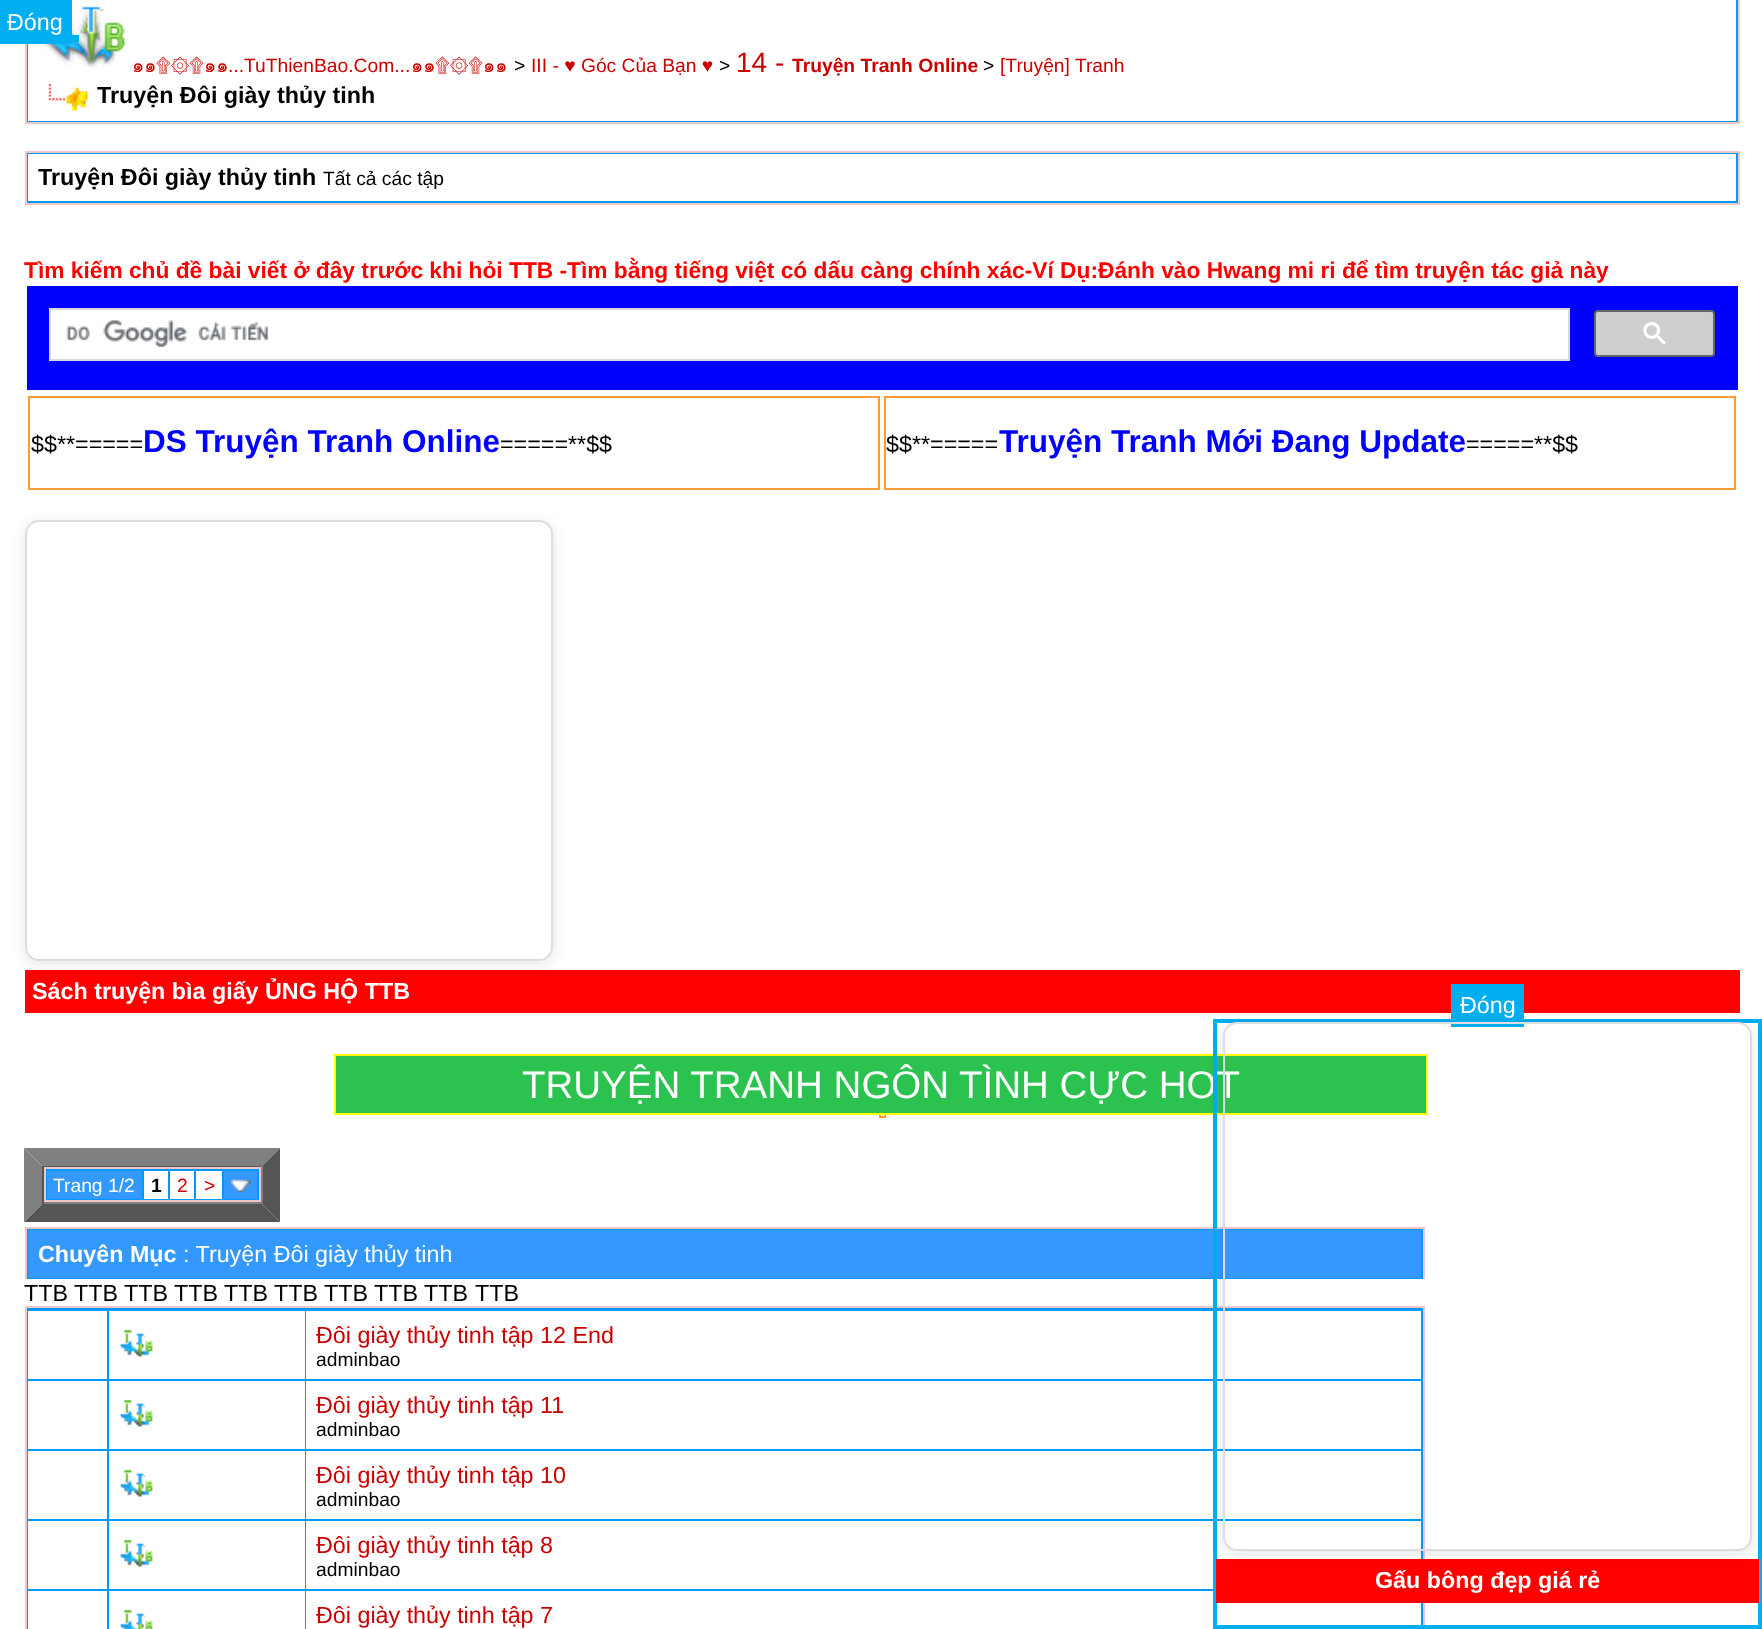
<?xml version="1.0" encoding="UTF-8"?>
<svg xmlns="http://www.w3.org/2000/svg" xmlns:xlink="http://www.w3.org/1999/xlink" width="1762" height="1629">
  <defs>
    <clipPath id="clip1"><path d="M 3 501 h 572 v 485 h -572 z m 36 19 h 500 c 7.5 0 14 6.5 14 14 v 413 c 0 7.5 -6.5 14 -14 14 h -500 c -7.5 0 -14 -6.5 -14 -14 v -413 c 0 -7.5 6.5 -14 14 -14 z" clip-rule="evenodd" /></clipPath>
    <clipPath id="clip2"><path d="M 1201 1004 h 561 v 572 h -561 z m 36 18 h 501 c 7.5 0 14 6.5 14 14 v 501 c 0 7.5 -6.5 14 -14 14 h -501 c -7.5 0 -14 -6.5 -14 -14 v -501 c 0 -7.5 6.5 -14 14 -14 z" clip-rule="evenodd" /></clipPath>
  </defs>
  <rect width="100%" height="100%" fill="#ffffff" />
  <rect x="26" y="-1" width="1713" height="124" fill="#0099ff" stroke="#f0c6c6" stroke-width="2" />
  <rect x="28" width="1708" height="121" fill="#ffffff" />
  <image x="38" y="0" width="87" height="68" xlink:href="image4.png" />
  <rect width="72" height="44" fill="#01aef0" />
  <rect x="72" y="35" width="7" height="7" fill="#01aef0" />
  <rect x="880" y="1112" width="5" height="5" fill="none" stroke="#ff9933" stroke-width="2" />
  <rect x="335" y="1055" width="1092" height="59" fill="#2cc250" stroke="#ffff00" stroke-width="2" />
  <path d="M 24 1148 h 256 l -18 18 h -220 z" fill="#808080" />
  <path d="M 280 1148 v 74 l -18 -18 v -38 z" fill="#555555" />
  <path d="M 280 1222 h -256 l 18 -18 h 220 z" fill="#555555" />
  <path d="M 24 1222 v -74 l 18 18 v 38 z" fill="#808080" />
  <rect x="42" y="1166" width="221" height="1" fill="#555555" />
  <rect x="261" y="1166" width="2" height="38" fill="#808080" />
  <rect x="42" y="1202" width="221" height="2" fill="#808080" />
  <rect x="42" y="1166" width="2" height="38" fill="#555555" />
  <rect x="45" y="1168" width="215" height="33" fill="#0099ff" stroke="#f0c6c6" stroke-width="2" />
  <rect x="47" y="1171" width="95" height="28" fill="#3399ff" />
  <rect x="144" y="1171" width="24" height="28" fill="#ffffff" />
  <rect x="170" y="1171" width="24" height="28" fill="#ffffff" />
  <rect x="196" y="1171" width="26" height="28" fill="#ffffff" />
  <rect x="224" y="1171" width="33" height="28" fill="#3399ff" />
  <image x="231" y="1179" width="20" height="13" xlink:href="image1.png" />
  <rect x="27" y="1229" width="1396" height="50" fill="#0099ff" />
  <rect x="25" y="1227" width="1400" height="2" fill="#f0c6c6" />
  <rect x="1423" y="1227" width="2" height="52" fill="#f0c6c6" />
  <rect x="25" y="1227" width="2" height="52" fill="#f0c6c6" />
  <rect x="28" y="1230" width="1393" height="48" fill="#3399ff" />
  <rect x="26" y="1307" width="1398" height="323" fill="#0099ff" stroke="#f0c6c6" stroke-width="2" />
  <rect x="28" y="1311" width="79" height="68" fill="#ffffff" />
  <rect x="109" y="1311" width="196" height="68" fill="#ffffff" />
  <image x="120" y="1329" width="33" height="28" xlink:href="image2.png" />
  <rect x="306" y="1311" width="1115" height="68" fill="#ffffff" />
  <rect x="28" y="1381" width="79" height="68" fill="#ffffff" />
  <rect x="109" y="1381" width="196" height="68" fill="#ffffff" />
  <image x="120" y="1399" width="33" height="28" xlink:href="image2.png" />
  <rect x="306" y="1381" width="1115" height="68" fill="#ffffff" />
  <rect x="28" y="1451" width="79" height="68" fill="#ffffff" />
  <rect x="109" y="1451" width="196" height="68" fill="#ffffff" />
  <image x="120" y="1469" width="33" height="28" xlink:href="image2.png" />
  <rect x="306" y="1451" width="1115" height="68" fill="#ffffff" />
  <rect x="28" y="1521" width="79" height="68" fill="#ffffff" />
  <rect x="109" y="1521" width="196" height="68" fill="#ffffff" />
  <image x="120" y="1539" width="33" height="28" xlink:href="image2.png" />
  <rect x="306" y="1521" width="1115" height="68" fill="#ffffff" />
  <rect x="28" y="1591" width="79" height="38" fill="#ffffff" />
  <rect x="109" y="1591" width="196" height="38" fill="#ffffff" />
  <image x="120" y="1609" width="33" height="20" xlink:href="image3.png" />
  <rect x="306" y="1591" width="1115" height="38" fill="#ffffff" />
  <image x="48" y="84" width="40" height="27" xlink:href="image5.png" />
  <rect x="26" y="152" width="1713" height="52" fill="#0099ff" stroke="#f0c6c6" stroke-width="2" />
  <rect x="28" y="154" width="1708" height="47" fill="#ffffff" />
  <rect x="27" y="286" width="1711" height="104" fill="#0000ff" />
  <rect x="50" y="309" width="1519" height="51" fill="#ffffff" stroke="#d9d9d9" stroke-width="2" />
  <image x="66" y="320" width="203" height="27" xlink:href="image6.png" />
  <rect x="1595" y="311" width="119" height="45" rx="3" fill="#cecece" stroke="#666666" stroke-width="2" />
  <image x="1643" y="322" width="23" height="23" xlink:href="image7.png" />
  <rect x="29" y="397" width="850" height="92" fill="none" stroke="#ff9933" stroke-width="2" />
  <rect x="885" y="397" width="850" height="92" fill="none" stroke="#ff9933" stroke-width="2" />
  <rect x="25" y="970" width="1715" height="43" fill="#ff0000" />
  <g clip-path="url(#clip1)">
    <rect x="25" y="523" width="528" height="441" rx="14" fill="#000000" fill-opacity="0.1" filter="blur(7px)" />
  </g>
  <rect x="26" y="521" width="526" height="439" rx="13" fill="none" stroke="#dddddd" stroke-width="2" />
  <text x="7" y="30" style="font-family: Liberation Sans; font-size: 23.3px; fill: #ffffff">Ðóng</text>
  <text x="522" y="1098" style="font-family: Liberation Sans; font-size: 38.5px; fill: #ffffff">TRUYỆN TRANH NGÔN TÌNH CỰC HOT</text>
  <rect x="1215" y="1021" width="545" height="606" fill="none" stroke="#01aef0" stroke-width="4" />
  <rect x="1451" y="984" width="73" height="43" fill="#01aef0" />
  <rect x="1216" y="1559" width="543" height="44" fill="#ff0000" />
  <g clip-path="url(#clip2)">
    <rect x="1223" y="1026" width="529" height="528" rx="14" fill="#000000" fill-opacity="0.1" filter="blur(7px)" />
  </g>
  <rect x="1224" y="1023" width="527" height="527" rx="13" fill="none" stroke="#dddddd" stroke-width="2" />
  <text x="1375" y="1588" style="font-family: Liberation Sans; font-size: 23.3px; font-weight: bold; fill: #ffffff">Gấu bông đẹp giá rẻ</text>
  <text x="1460" y="1013" style="font-family: Liberation Sans; font-size: 23.3px; fill: #ffffff">Ðóng</text>
  <text x="53" y="1192" style="font-family: Liberation Sans; font-size: 19.25px; fill: #ffffff">Trang 1/2</text>
  <text x="151" y="1192" style="font-family: Liberation Sans; font-size: 19.25px; font-weight: bold; fill: #000000">1</text>
  <text x="177" y="1192" style="font-family: Liberation Sans; font-size: 19.25px; fill: #cc0000">2</text>
  <text x="204" y="1192" style="font-family: Liberation Sans; font-size: 19.25px; fill: #cc0000">&gt;</text>
  <text x="38" y="1262" style="font-family: Liberation Sans; font-size: 23.3px; font-weight: bold; fill: #ffffff">Chuyên Mục</text>
  <text x="183" y="1262" style="font-family: Liberation Sans; font-size: 23.3px; fill: #ffffff">: Truyện Đôi giày thủy tinh</text>
  <text x="24" y="1301" style="font-family: Liberation Sans; font-size: 23.3px; fill: #000000">TTB</text>
  <text x="74" y="1301" style="font-family: Liberation Sans; font-size: 23.3px; fill: #000000">TTB</text>
  <text x="124" y="1301" style="font-family: Liberation Sans; font-size: 23.3px; fill: #000000">TTB</text>
  <text x="174" y="1301" style="font-family: Liberation Sans; font-size: 23.3px; fill: #000000">TTB</text>
  <text x="224" y="1301" style="font-family: Liberation Sans; font-size: 23.3px; fill: #000000">TTB</text>
  <text x="274" y="1301" style="font-family: Liberation Sans; font-size: 23.3px; fill: #000000">TTB</text>
  <text x="324" y="1301" style="font-family: Liberation Sans; font-size: 23.3px; fill: #000000">TTB</text>
  <text x="374" y="1301" style="font-family: Liberation Sans; font-size: 23.3px; fill: #000000">TTB</text>
  <text x="424" y="1301" style="font-family: Liberation Sans; font-size: 23.3px; fill: #000000">TTB</text>
  <text x="475" y="1301" style="font-family: Liberation Sans; font-size: 23.3px; fill: #000000">TTB</text>
  <text x="316" y="1343" style="font-family: Liberation Sans; font-size: 23.3px; fill: #cc0000">Đôi giày thủy tinh tập 12 End</text>
  <text x="316" y="1366" style="font-family: Liberation Sans; font-size: 19.25px; fill: #000000">adminbao</text>
  <text x="316" y="1413" style="font-family: Liberation Sans; font-size: 23.3px; fill: #cc0000">Đôi giày thủy tinh tập 11</text>
  <text x="316" y="1436" style="font-family: Liberation Sans; font-size: 19.25px; fill: #000000">adminbao</text>
  <text x="316" y="1483" style="font-family: Liberation Sans; font-size: 23.3px; fill: #cc0000">Đôi giày thủy tinh tập 10</text>
  <text x="316" y="1506" style="font-family: Liberation Sans; font-size: 19.25px; fill: #000000">adminbao</text>
  <text x="316" y="1553" style="font-family: Liberation Sans; font-size: 23.3px; fill: #cc0000">Đôi giày thủy tinh tập 8</text>
  <text x="316" y="1576" style="font-family: Liberation Sans; font-size: 19.25px; fill: #000000">adminbao</text>
  <text x="316" y="1623" style="font-family: Liberation Sans; font-size: 23.3px; fill: #cc0000">Đôi giày thủy tinh tập 7</text>
  <text x="132" y="72" style="font-family: Loma; font-size: 19.25px; fill: #cc0000">๑๑</text>
  <text x="156" y="72" style="font-family: FreeSerif; font-size: 19.25px; fill: #cc0000">۩۞۩</text>
  <text x="204" y="72" style="font-family: Loma; font-size: 19.25px; fill: #cc0000">๑๑</text>
  <text x="228" y="72" style="font-family: Liberation Sans; font-size: 19.25px; fill: #cc0000">...TuThienBao.Com...</text>
  <text x="411" y="72" style="font-family: Loma; font-size: 19.25px; fill: #cc0000">๑๑</text>
  <text x="435" y="72" style="font-family: FreeSerif; font-size: 19.25px; fill: #cc0000">۩۞۩</text>
  <text x="483" y="72" style="font-family: Loma; font-size: 19.25px; fill: #cc0000">๑๑</text>
  <text x="514" y="72" style="font-family: Liberation Sans; font-size: 19.25px; fill: #000000">&gt;</text>
  <text x="531" y="72" style="font-family: Liberation Sans; font-size: 19.25px; fill: #cc0000">III - ♥ Góc Của Bạn ♥</text>
  <text x="719" y="72" style="font-family: Liberation Sans; font-size: 19.25px; fill: #000000">&gt;</text>
  <text x="736" y="72" style="font-family: Liberation Sans; font-size: 28px; fill: #cc0000">14 -</text>
  <text x="792" y="72" style="font-family: Liberation Sans; font-size: 19.25px; font-weight: bold; fill: #cc0000">Truyện Tranh Online</text>
  <text x="983" y="72" style="font-family: Liberation Sans; font-size: 19.25px; fill: #000000">&gt;</text>
  <text x="1000" y="72" style="font-family: Liberation Sans; font-size: 19.25px; fill: #cc0000">[Truyện] Tranh</text>
  <text x="97" y="103" style="font-family: Liberation Sans; font-size: 23.3px; font-weight: bold; fill: #000000">Truyện Đôi giày thủy tinh</text>
  <text x="38" y="185" style="font-family: Liberation Sans; font-size: 23.3px; font-weight: bold; fill: #000000">Truyện Đôi giày thủy tinh</text>
  <text x="323" y="185" style="font-family: Liberation Sans; font-size: 19.25px; fill: #000000">Tất cả các tập</text>
  <text x="24" y="278" style="font-family: Liberation Sans; font-size: 22.75px; font-weight: bold; fill: #ff0000">Tìm kiếm chủ đề bài viết ở đây trước khi hỏi TTB -Tìm bằng tiếng việt có dấu càng chính xác-Ví Dụ:Đánh vào Hwang mi ri để tìm truyện tác giả này</text>
  <text x="31" y="452" style="font-family: Liberation Sans; font-size: 23.3px; fill: #000000">$$**=====</text>
  <text x="143" y="452" style="font-family: Liberation Sans; font-size: 31.5px; font-weight: bold; fill: #0000ff">DS Truyện Tranh Online</text>
  <text x="500" y="452" style="font-family: Liberation Sans; font-size: 23.3px; fill: #000000">=====**$$</text>
  <text x="886" y="452" style="font-family: Liberation Sans; font-size: 23.3px; fill: #000000">$$**=====</text>
  <text x="999" y="452" style="font-family: Liberation Sans; font-size: 31.5px; font-weight: bold; fill: #0000ff">Truyện Tranh Mới Đang Update</text>
  <text x="1466" y="452" style="font-family: Liberation Sans; font-size: 23.3px; fill: #000000">=====**$$</text>
  <text x="32" y="999" style="font-family: Liberation Sans; font-size: 23.3px; font-weight: bold; fill: #ffffff">Sách truyện bìa giấy ỦNG HỘ TTB</text>
</svg>
